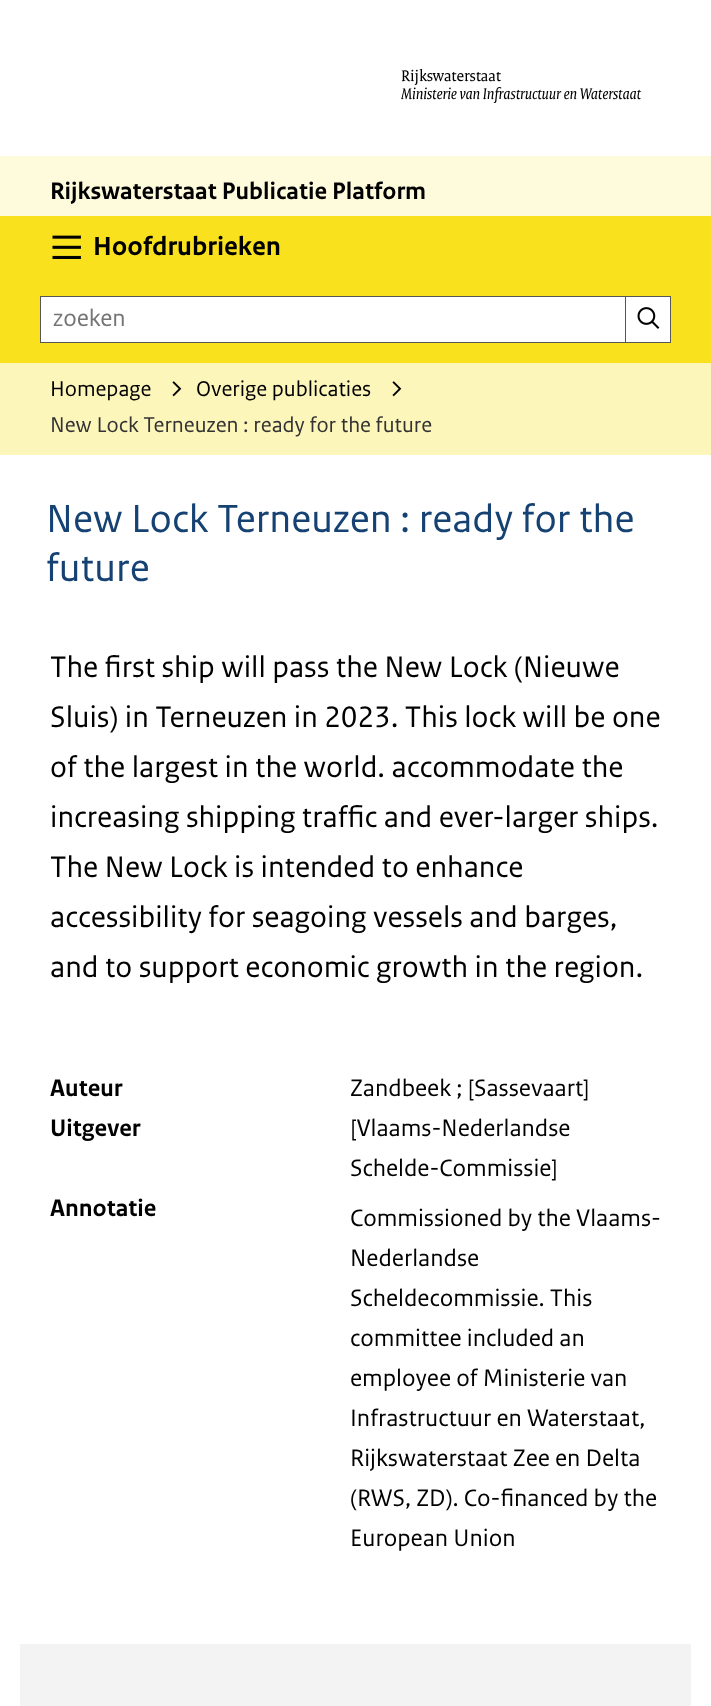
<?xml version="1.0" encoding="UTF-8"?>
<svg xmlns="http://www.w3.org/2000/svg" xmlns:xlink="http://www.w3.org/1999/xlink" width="711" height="1706">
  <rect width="100%" height="100%" fill="#ffffff" />
  <rect y="156" width="711" height="60" fill="#fefbdd" />
  <rect y="216" width="711" height="147" fill="#f9e11e" />
  <image x="52" y="235" width="29" height="24" xlink:href="image1.png" />
  <rect x="40.5" y="296.5" width="585" height="46" fill="#ffffff" stroke="#575757" />
  <rect x="625.5" y="296.5" width="45" height="46" fill="#ffffff" stroke="#575757" />
  <image x="637" y="307" width="23" height="22" xlink:href="image2.png" />
  <rect y="363" width="711" height="92" fill="#fdf6bb" />
  <image x="172" y="381" width="10" height="16" xlink:href="image3.png" />
  <image x="392" y="381" width="10" height="16" xlink:href="image3.png" />
  <rect x="20" y="1644" width="671" height="62" fill="#f3f3f3" />
  <text x="401" y="81" style="font-family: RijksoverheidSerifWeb; font-size: 16.6px; fill: #000000">Rijkswaterstaat</text>
  <text x="401" y="99" style="font-family: RijksoverheidSerifWeb; font-size: 16.6px; font-style: italic; fill: #000000">Ministerie van Infrastructuur en Waterstaat</text>
  <text x="50" y="199" style="font-family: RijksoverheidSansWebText; font-size: 25px; font-weight: bold; fill: #000000">Rijkswaterstaat Publicatie Platform</text>
  <text x="93" y="255" style="font-family: RijksoverheidSansWebText; font-size: 27.5px; font-weight: bold; fill: #000000">Hoofdrubrieken</text>
  <text x="53" y="326" style="font-family: RijksoverheidSansWebText; font-size: 25px; fill: #757575">zoeken</text>
  <text x="50" y="396" style="font-family: RijksoverheidSansWebText; font-size: 22.5px; fill: #000000">Homepage</text>
  <text x="196" y="396" style="font-family: RijksoverheidSansWebText; font-size: 22.5px; fill: #000000">Overige publicaties</text>
  <text x="50" y="432" style="font-family: RijksoverheidSansWebText; font-size: 22.5px; fill: #333333">New Lock Terneuzen : ready for the future</text>
  <text x="46" y="532" style="font-family: RijksoverheidSansWebText; font-size: 41.25px; fill: #154273">New Lock Terneuzen : ready for the</text>
  <text x="46" y="581" style="font-family: RijksoverheidSansWebText; font-size: 41.25px; fill: #154273">future</text>
  <text x="50" y="677" style="font-family: RijksoverheidSansWebText; font-size: 31.25px; fill: #000000">The first ship will pass the New Lock (Nieuwe</text>
  <text x="50" y="727" style="font-family: RijksoverheidSansWebText; font-size: 31.25px; fill: #000000">Sluis) in Terneuzen in 2023. This lock will be one</text>
  <text x="50" y="777" style="font-family: RijksoverheidSansWebText; font-size: 31.25px; fill: #000000">of the largest in the world. accommodate the</text>
  <text x="50" y="827" style="font-family: RijksoverheidSansWebText; font-size: 31.25px; fill: #000000">increasing shipping traffic and ever-larger ships.</text>
  <text x="50" y="877" style="font-family: RijksoverheidSansWebText; font-size: 31.25px; fill: #000000">The New Lock is intended to enhance</text>
  <text x="50" y="927" style="font-family: RijksoverheidSansWebText; font-size: 31.25px; fill: #000000">accessibility for seagoing vessels and barges,</text>
  <text x="50" y="977" style="font-family: RijksoverheidSansWebText; font-size: 31.25px; fill: #000000">and to support economic growth in the region.</text>
  <text x="50" y="1096" style="font-family: RijksoverheidSansWebText; font-size: 25px; font-weight: bold; fill: #000000">Auteur</text>
  <text x="350" y="1096" style="font-family: RijksoverheidSansWebText; font-size: 25px; fill: #000000">Zandbeek ; [Sassevaart]</text>
  <text x="50" y="1136" style="font-family: RijksoverheidSansWebText; font-size: 25px; font-weight: bold; fill: #000000">Uitgever</text>
  <text x="350" y="1136" style="font-family: RijksoverheidSansWebText; font-size: 25px; fill: #000000">[Vlaams-Nederlandse</text>
  <text x="350" y="1176" style="font-family: RijksoverheidSansWebText; font-size: 25px; fill: #000000">Schelde-Commissie]</text>
  <text x="50" y="1216" style="font-family: RijksoverheidSansWebText; font-size: 25px; font-weight: bold; fill: #000000">Annotatie</text>
  <text x="350" y="1226" style="font-family: RijksoverheidSansWebText; font-size: 25px; fill: #000000">Commissioned by the Vlaams-</text>
  <text x="350" y="1266" style="font-family: RijksoverheidSansWebText; font-size: 25px; fill: #000000">Nederlandse</text>
  <text x="350" y="1306" style="font-family: RijksoverheidSansWebText; font-size: 25px; fill: #000000">Scheldecommissie. This</text>
  <text x="350" y="1346" style="font-family: RijksoverheidSansWebText; font-size: 25px; fill: #000000">committee included an</text>
  <text x="350" y="1386" style="font-family: RijksoverheidSansWebText; font-size: 25px; fill: #000000">employee of Ministerie van</text>
  <text x="350" y="1426" style="font-family: RijksoverheidSansWebText; font-size: 25px; fill: #000000">Infrastructuur en Waterstaat,</text>
  <text x="350" y="1466" style="font-family: RijksoverheidSansWebText; font-size: 25px; fill: #000000">Rijkswaterstaat Zee en Delta</text>
  <text x="350" y="1506" style="font-family: RijksoverheidSansWebText; font-size: 25px; fill: #000000">(RWS, ZD). Co-financed by the</text>
  <text x="350" y="1546" style="font-family: RijksoverheidSansWebText; font-size: 25px; fill: #000000">European Union</text>
</svg>
